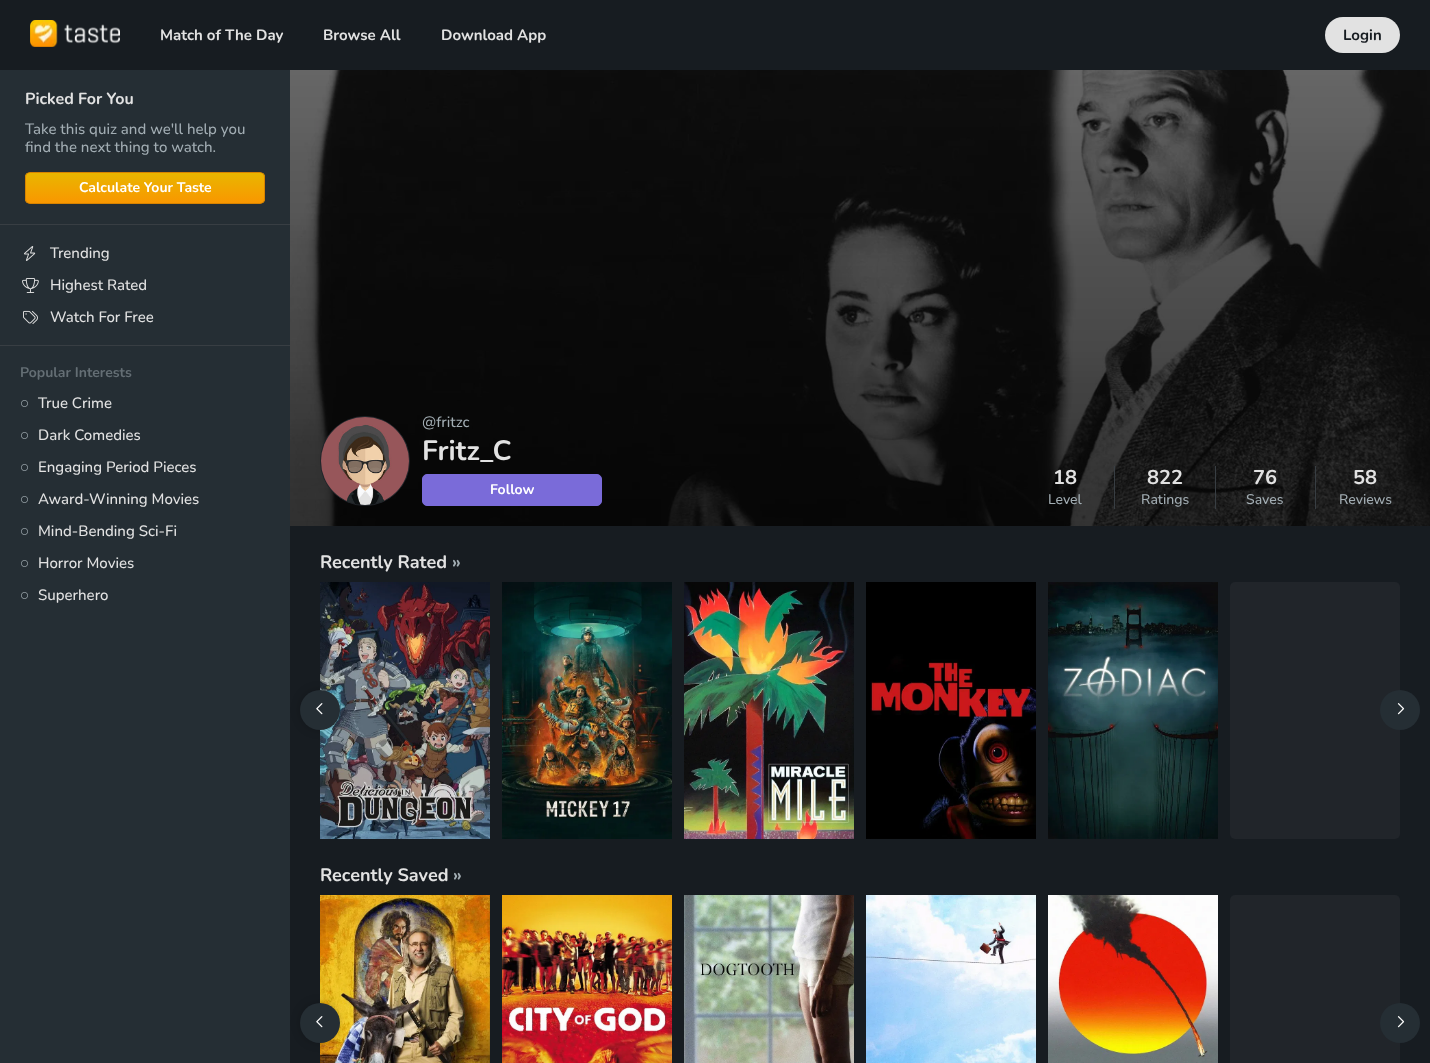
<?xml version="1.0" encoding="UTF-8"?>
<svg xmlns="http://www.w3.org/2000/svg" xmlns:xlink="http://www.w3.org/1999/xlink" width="1430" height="1063">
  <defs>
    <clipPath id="clip1"><rect x="25" y="172" width="240" height="32" rx="5" /></clipPath>
    <linearGradient id="g1" gradientUnits="userSpaceOnUse" x1="145" y1="173" x2="145" y2="203"><stop offset="0" stop-color="#e9b600" /><stop offset="1" stop-color="#f99700" /></linearGradient>
  </defs>
  <rect width="100%" height="100%" fill="#171c21" />
  <image x="30" y="20" width="90" height="27" xlink:href="image1.png" />
  <rect x="1325" y="17" width="75" height="36" rx="18" fill="#e2e2e2" />
  <rect y="70" width="290" height="993" fill="#252e34" />
  <rect y="224" width="290" height="1" fill="#383e43" />
  <g clip-path="url(#clip1)">
    <rect x="25" y="173" width="240" height="30" fill="url(#g1)" />
  </g>
  <rect x="25.5" y="172.5" width="239" height="31" rx="4.5" fill="none" stroke="#d88300" />
  <image x="24" y="246" width="12" height="15" xlink:href="image2.png" />
  <image x="22" y="278" width="17" height="15" xlink:href="image3.png" />
  <image x="23" y="310" width="15" height="14" xlink:href="image4.png" />
  <rect y="345" width="290" height="1" fill="#383e43" />
  <image x="21" y="400" width="7" height="7" xlink:href="image5.png" />
  <image x="21" y="432" width="7" height="7" xlink:href="image5.png" />
  <image x="21" y="464" width="7" height="7" xlink:href="image5.png" />
  <image x="21" y="496" width="7" height="7" xlink:href="image5.png" />
  <image x="21" y="528" width="7" height="7" xlink:href="image5.png" />
  <image x="21" y="560" width="7" height="7" xlink:href="image5.png" />
  <image x="21" y="592" width="7" height="7" xlink:href="image5.png" />
  <image x="290" y="70" width="1140" height="456" xlink:href="image6.png" />
  <circle cx="365" cy="461" r="44.5" fill="#21252a" stroke="#21252a" />
  <image x="321" y="417" width="88" height="88" xlink:href="image7.png" />
  <rect x="422.5" y="474.5" width="179" height="31" rx="4.5" fill="#7a6bd9" stroke="#7a6bd9" />
  <rect x="1114" y="466" width="1" height="43" fill="#383e43" />
  <rect x="1215" y="466" width="1" height="43" fill="#383e43" />
  <rect x="1315" y="466" width="1" height="43" fill="#383e43" />
  <image x="320" y="582" width="170" height="257" xlink:href="image8.png" />
  <image x="502" y="582" width="170" height="257" xlink:href="image9.png" />
  <image x="684" y="582" width="170" height="257" xlink:href="image10.png" />
  <image x="866" y="582" width="170" height="257" xlink:href="image11.png" />
  <image x="1048" y="582" width="170" height="257" xlink:href="image12.png" />
  <rect x="1230" y="582" width="170" height="257" rx="5" fill="#21252a" />
  <rect x="300" y="690" width="40" height="40" rx="20" fill="#000000" fill-opacity="0.2" filter="blur(5px)" />
  <circle cx="320" cy="710" r="20" fill="#252e34" />
  <image x="316" y="703" width="7" height="12" xlink:href="image13.png" />
  <circle cx="1400" cy="710" r="20" fill="#252e34" />
  <image x="1397" y="703" width="8" height="12" xlink:href="image14.png" />
  <rect x="320.5" y="895.5" width="169" height="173" rx="4.5" fill="none" stroke="#21252a" />
  <image x="320" y="895" width="170" height="168" xlink:href="image15.png" />
  <image x="502" y="895" width="170" height="168" xlink:href="image16.png" />
  <image x="684" y="895" width="170" height="168" xlink:href="image17.png" />
  <image x="866" y="895" width="170" height="168" xlink:href="image18.png" />
  <image x="1048" y="895" width="170" height="168" xlink:href="image19.png" />
  <rect x="1230" y="895" width="170" height="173" rx="5" fill="#21252a" />
  <rect x="300" y="1003" width="40" height="40" rx="20" fill="#000000" fill-opacity="0.2" filter="blur(5px)" />
  <circle cx="320" cy="1023" r="20" fill="#252e34" />
  <image x="316" y="1016" width="7" height="12" xlink:href="image13.png" />
  <circle cx="1400" cy="1023" r="20" fill="#252e34" />
  <image x="1397" y="1016" width="8" height="12" xlink:href="image14.png" />
  <text x="160" y="40" style="font-family: Nunito; font-size: 15px; font-weight: bold; fill: #e2e2e2">Match of The Day</text>
  <text x="323" y="40" style="font-family: Nunito; font-size: 15px; font-weight: bold; fill: #e2e2e2">Browse All</text>
  <text x="441" y="40" style="font-family: Nunito; font-size: 15px; font-weight: bold; fill: #e2e2e2">Download App</text>
  <text x="1343" y="40" style="font-family: Nunito; font-size: 15px; font-weight: bold; fill: #171c21">Login</text>
  <text x="25" y="104" style="font-family: Nunito; font-size: 16px; font-weight: bold; fill: #e2e2e2">Picked For You</text>
  <text x="25" y="134" style="font-family: Nunito; font-size: 15px; font-weight: 500; fill: #a2adb3">Take this quiz and we'll help you</text>
  <text x="25" y="152" style="font-family: Nunito; font-size: 15px; font-weight: 500; fill: #a2adb3">find the next thing to watch.</text>
  <text x="79" y="192" style="font-family: Nunito; font-size: 14px; font-weight: bold; fill: #ffffff">Calculate Your Taste</text>
  <text x="50" y="258" style="font-family: Nunito; font-size: 15px; font-weight: 500; fill: #e2e2e2">Trending</text>
  <text x="50" y="290" style="font-family: Nunito; font-size: 15px; font-weight: 500; fill: #e2e2e2">Highest Rated</text>
  <text x="50" y="322" style="font-family: Nunito; font-size: 15px; font-weight: 500; fill: #e2e2e2">Watch For Free</text>
  <text x="20" y="377" style="font-family: Nunito; font-size: 14px; font-weight: bold; fill: #646e74">Popular Interests</text>
  <text x="38" y="408" style="font-family: Nunito; font-size: 15px; font-weight: 500; fill: #e2e2e2">True Crime</text>
  <text x="38" y="440" style="font-family: Nunito; font-size: 15px; font-weight: 500; fill: #e2e2e2">Dark Comedies</text>
  <text x="38" y="472" style="font-family: Nunito; font-size: 15px; font-weight: 500; fill: #e2e2e2">Engaging Period Pieces</text>
  <text x="38" y="504" style="font-family: Nunito; font-size: 15px; font-weight: 500; fill: #e2e2e2">Award-Winning Movies</text>
  <text x="38" y="536" style="font-family: Nunito; font-size: 15px; font-weight: 500; fill: #e2e2e2">Mind-Bending Sci-Fi</text>
  <text x="38" y="568" style="font-family: Nunito; font-size: 15px; font-weight: 500; fill: #e2e2e2">Horror Movies</text>
  <text x="38" y="600" style="font-family: Nunito; font-size: 15px; font-weight: 500; fill: #e2e2e2">Superhero</text>
  <text x="422" y="427" style="font-family: Nunito; font-size: 15px; font-weight: 500; fill: #a2adb3">@fritzc</text>
  <text x="422" y="460" style="font-family: Nunito; font-size: 28px; font-weight: bold; fill: #e2e2e2">Fritz_C</text>
  <text x="490" y="494" style="font-family: Nunito; font-size: 14px; font-weight: bold; fill: #ffffff">Follow</text>
  <text x="1053" y="484" style="font-family: Nunito; font-size: 20px; font-weight: bold; fill: #e2e2e2">18</text>
  <text x="1048" y="504" style="font-family: Nunito; font-size: 14px; font-weight: 500; fill: #a2adb3">Level</text>
  <text x="1147" y="484" style="font-family: Nunito; font-size: 20px; font-weight: bold; fill: #e2e2e2">822</text>
  <text x="1141" y="504" style="font-family: Nunito; font-size: 14px; font-weight: 500; fill: #a2adb3">Ratings</text>
  <text x="1253" y="484" style="font-family: Nunito; font-size: 20px; font-weight: bold; fill: #e2e2e2">76</text>
  <text x="1246" y="504" style="font-family: Nunito; font-size: 14px; font-weight: 500; fill: #a2adb3">Saves</text>
  <text x="1353" y="484" style="font-family: Nunito; font-size: 20px; font-weight: bold; fill: #e2e2e2">58</text>
  <text x="1339" y="504" style="font-family: Nunito; font-size: 14px; font-weight: 500; fill: #a2adb3">Reviews</text>
  <text x="320" y="568" style="font-family: Nunito; font-size: 18px; font-weight: bold; fill: #e2e2e2">Recently Rated</text>
  <text x="452" y="568" style="font-family: Nunito; font-size: 18px; font-weight: bold; fill: #a2adb3">»</text>
  <text x="320" y="881" style="font-family: Nunito; font-size: 18px; font-weight: bold; fill: #e2e2e2">Recently Saved</text>
  <text x="453" y="881" style="font-family: Nunito; font-size: 18px; font-weight: bold; fill: #a2adb3">»</text>
</svg>
